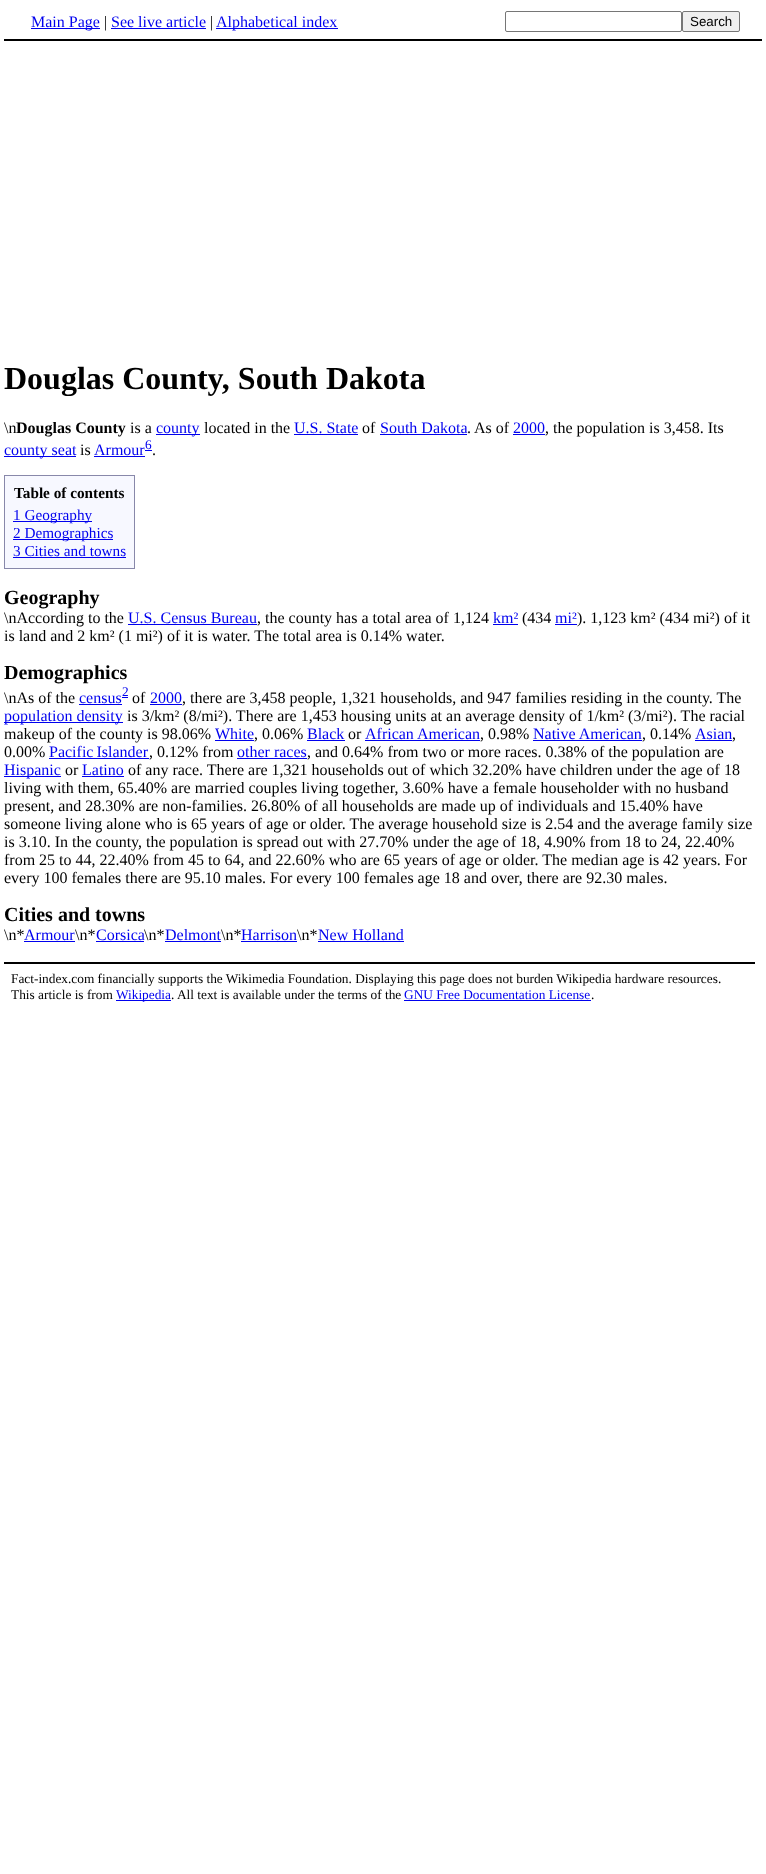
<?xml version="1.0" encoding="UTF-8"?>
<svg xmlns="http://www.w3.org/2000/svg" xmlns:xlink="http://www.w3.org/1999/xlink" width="766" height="1874">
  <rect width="100%" height="100%" fill="#ffffff" />
  <rect x="4" y="39" width="758" height="2" fill="#000000" />
  <rect x="31" y="28" width="69" height="1" fill="#0000ee" />
  <rect x="111" y="28" width="95" height="1" fill="#0000ee" />
  <rect x="216" y="28" width="122" height="1" fill="#0000ee" />
  <rect x="505.5" y="11.5" width="176" height="20" rx="1.5" fill="none" stroke="#767676" />
  <rect x="682.5" y="11.5" width="57" height="20" rx="1.5" fill="#efefef" stroke="#767676" />
  <rect x="156" y="434" width="44" height="1" fill="#0000ee" />
  <rect x="294" y="434" width="64" height="1" fill="#0000ee" />
  <rect x="380" y="434" width="87" height="1" fill="#0000ee" />
  <rect x="513" y="434" width="32" height="1" fill="#0000ee" />
  <rect x="4" y="456" width="72" height="1" fill="#0000ee" />
  <rect x="94" y="456" width="51" height="1" fill="#0000ee" />
  <rect x="145" y="450" width="7" height="1" fill="#0000ee" />
  <rect x="4.5" y="475.5" width="130" height="93" fill="#f7f8ff" stroke="#8888aa" />
  <rect x="13" y="521" width="79" height="1" fill="#0000ee" />
  <rect x="13" y="539" width="100" height="1" fill="#0000ee" />
  <rect x="13" y="557" width="113" height="1" fill="#0000ee" />
  <rect x="128" y="624" width="129" height="1" fill="#0000ee" />
  <rect x="493" y="624" width="25" height="1" fill="#0000ee" />
  <rect x="555" y="624" width="22" height="1" fill="#0000ee" />
  <rect x="79" y="704" width="43" height="1" fill="#0000ee" />
  <rect x="122" y="697" width="6" height="1" fill="#0000ee" />
  <rect x="150" y="704" width="32" height="1" fill="#0000ee" />
  <rect x="4" y="722" width="119" height="1" fill="#0000ee" />
  <rect x="215" y="740" width="39" height="1" fill="#0000ee" />
  <rect x="307" y="740" width="38" height="1" fill="#0000ee" />
  <rect x="365" y="740" width="115" height="1" fill="#0000ee" />
  <rect x="533" y="740" width="109" height="1" fill="#0000ee" />
  <rect x="695" y="740" width="37" height="1" fill="#0000ee" />
  <rect x="49" y="758" width="100" height="1" fill="#0000ee" />
  <rect x="237" y="758" width="70" height="1" fill="#0000ee" />
  <rect x="4" y="776" width="57" height="1" fill="#0000ee" />
  <rect x="82" y="776" width="42" height="1" fill="#0000ee" />
  <rect x="165" y="941" width="56" height="1" fill="#0000ee" />
  <rect x="318" y="941" width="86" height="1" fill="#0000ee" />
  <rect x="24" y="941" width="51" height="1" fill="#0000ee" />
  <rect x="96" y="941" width="48" height="1" fill="#0000ee" />
  <rect x="241" y="941" width="56" height="1" fill="#0000ee" />
  <rect x="4" y="962" width="751" height="2" fill="#000000" />
  <rect x="116" y="1000" width="55" height="1" fill="#0000ee" />
  <rect x="404" y="1000" width="187" height="1" fill="#0000ee" />
  <text x="31" y="27" style="font-family: Liberation Serif; font-size: 16px; fill: #0000ee">Main Page</text>
  <text x="104" y="27" style="font-family: Liberation Serif; font-size: 16px; fill: #000000">|</text>
  <text x="111" y="27" style="font-family: Liberation Serif; font-size: 16px; fill: #0000ee">See live article</text>
  <text x="210" y="27" style="font-family: Liberation Serif; font-size: 16px; fill: #000000">|</text>
  <text x="216" y="27" style="font-family: Liberation Serif; font-size: 16px; fill: #0000ee">Alphabetical index</text>
  <text x="690" y="26" style="font-family: Liberation Sans; font-size: 13.33px; fill: #000000">Search</text>
  <text x="4" y="389" style="font-family: Liberation Serif; font-size: 32px; font-weight: bold; fill: #000000">Douglas County, South Dakota</text>
  <text x="4" y="433" style="font-family: Liberation Serif; font-size: 16px; fill: #000000">\n</text>
  <text x="16" y="433" style="font-family: Liberation Serif; font-size: 16px; font-weight: bold; fill: #000000">Douglas County</text>
  <text x="130" y="433" style="font-family: Liberation Serif; font-size: 16px; fill: #000000">is a</text>
  <text x="156" y="433" style="font-family: Liberation Serif; font-size: 16px; fill: #0000ee">county</text>
  <text x="204" y="433" style="font-family: Liberation Serif; font-size: 16px; fill: #000000">located in the</text>
  <text x="294" y="433" style="font-family: Liberation Serif; font-size: 16px; fill: #0000ee">U.S. State</text>
  <text x="362" y="433" style="font-family: Liberation Serif; font-size: 16px; fill: #000000">of</text>
  <text x="380" y="433" style="font-family: Liberation Serif; font-size: 16px; fill: #0000ee">South Dakota</text>
  <text x="467" y="433" style="font-family: Liberation Serif; font-size: 16px; fill: #000000">.</text>
  <text x="474" y="433" style="font-family: Liberation Serif; font-size: 16px; fill: #000000">As of</text>
  <text x="513" y="433" style="font-family: Liberation Serif; font-size: 16px; fill: #0000ee">2000</text>
  <text x="545" y="433" style="font-family: Liberation Serif; font-size: 16px; fill: #000000">, the population is 3,458. Its</text>
  <text x="4" y="455" style="font-family: Liberation Serif; font-size: 16px; fill: #0000ee">county seat</text>
  <text x="80" y="455" style="font-family: Liberation Serif; font-size: 16px; fill: #000000">is</text>
  <text x="94" y="455" style="font-family: Liberation Serif; font-size: 16px; fill: #0000ee">Armour</text>
  <text x="145" y="449" style="font-family: Liberation Serif; font-size: 13.33px; fill: #0000ee">6</text>
  <text x="152" y="455" style="font-family: Liberation Serif; font-size: 16px; fill: #000000">.</text>
  <text x="14" y="498" style="font-family: Liberation Serif; font-size: 15.25px; font-weight: bold; fill: #000000">Table of contents</text>
  <text x="13" y="520" style="font-family: Liberation Serif; font-size: 15.25px; fill: #0000ee">1 Geography</text>
  <text x="13" y="538" style="font-family: Liberation Serif; font-size: 15.25px; fill: #0000ee">2 Demographics</text>
  <text x="13" y="556" style="font-family: Liberation Serif; font-size: 15.25px; fill: #0000ee">3 Cities and towns</text>
  <text x="4" y="604" style="font-family: Liberation Serif; font-size: 20px; font-weight: bold; fill: #000000">Geography</text>
  <text x="4" y="623" style="font-family: Liberation Serif; font-size: 16px; fill: #000000">\nAccording to the</text>
  <text x="128" y="623" style="font-family: Liberation Serif; font-size: 16px; fill: #0000ee">U.S. Census Bureau</text>
  <text x="257" y="623" style="font-family: Liberation Serif; font-size: 16px; fill: #000000">, the county has a total area of 1,124</text>
  <text x="493" y="623" style="font-family: Liberation Serif; font-size: 16px; fill: #0000ee">km²</text>
  <text x="522" y="623" style="font-family: Liberation Serif; font-size: 16px; fill: #000000">(434</text>
  <text x="555" y="623" style="font-family: Liberation Serif; font-size: 16px; fill: #0000ee">mi²</text>
  <text x="577" y="623" style="font-family: Liberation Serif; font-size: 16px; fill: #000000">). 1,123 km² (434 mi²) of it</text>
  <text x="4" y="641" style="font-family: Liberation Serif; font-size: 16px; fill: #000000">is land and 2 km² (1 mi²) of it is water. The total area is 0.14% water.</text>
  <text x="4" y="679" style="font-family: Liberation Serif; font-size: 20px; font-weight: bold; fill: #000000">Demographics</text>
  <text x="4" y="703" style="font-family: Liberation Serif; font-size: 16px; fill: #000000">\nAs of the</text>
  <text x="79" y="703" style="font-family: Liberation Serif; font-size: 16px; fill: #0000ee">census</text>
  <text x="122" y="696" style="font-family: Liberation Serif; font-size: 13.33px; fill: #0000ee">2</text>
  <text x="132" y="703" style="font-family: Liberation Serif; font-size: 16px; fill: #000000">of</text>
  <text x="150" y="703" style="font-family: Liberation Serif; font-size: 16px; fill: #0000ee">2000</text>
  <text x="182" y="703" style="font-family: Liberation Serif; font-size: 16px; fill: #000000">, there are 3,458 people, 1,321 households, and 947 families residing in the county. The</text>
  <text x="4" y="721" style="font-family: Liberation Serif; font-size: 16px; fill: #0000ee">population density</text>
  <text x="127" y="721" style="font-family: Liberation Serif; font-size: 16px; fill: #000000">is 3/km² (8/mi²). There are 1,453 housing units at an average density of 1/km² (3/mi²). The racial</text>
  <text x="4" y="739" style="font-family: Liberation Serif; font-size: 16px; fill: #000000">makeup of the county is 98.06%</text>
  <text x="215" y="739" style="font-family: Liberation Serif; font-size: 16px; fill: #0000ee">White</text>
  <text x="254" y="739" style="font-family: Liberation Serif; font-size: 16px; fill: #000000">, 0.06%</text>
  <text x="307" y="739" style="font-family: Liberation Serif; font-size: 16px; fill: #0000ee">Black</text>
  <text x="348" y="739" style="font-family: Liberation Serif; font-size: 16px; fill: #000000">or</text>
  <text x="365" y="739" style="font-family: Liberation Serif; font-size: 16px; fill: #0000ee">African American</text>
  <text x="480" y="739" style="font-family: Liberation Serif; font-size: 16px; fill: #000000">, 0.98%</text>
  <text x="533" y="739" style="font-family: Liberation Serif; font-size: 16px; fill: #0000ee">Native American</text>
  <text x="642" y="739" style="font-family: Liberation Serif; font-size: 16px; fill: #000000">, 0.14%</text>
  <text x="695" y="739" style="font-family: Liberation Serif; font-size: 16px; fill: #0000ee">Asian</text>
  <text x="732" y="739" style="font-family: Liberation Serif; font-size: 16px; fill: #000000">,</text>
  <text x="4" y="757" style="font-family: Liberation Serif; font-size: 16px; fill: #000000">0.00%</text>
  <text x="49" y="757" word-spacing="-1" style="font-family: Liberation Serif; font-size: 16px; fill: #0000ee">Pacific Islander</text>
  <text x="149" y="757" style="font-family: Liberation Serif; font-size: 16px; fill: #000000">, 0.12% from</text>
  <text x="237" y="757" style="font-family: Liberation Serif; font-size: 16px; fill: #0000ee">other races</text>
  <text x="307" y="757" style="font-family: Liberation Serif; font-size: 16px; fill: #000000">, and 0.64% from two or more races. 0.38% of the population are</text>
  <text x="4" y="775" style="font-family: Liberation Serif; font-size: 16px; fill: #0000ee">Hispanic</text>
  <text x="65" y="775" style="font-family: Liberation Serif; font-size: 16px; fill: #000000">or</text>
  <text x="82" y="775" style="font-family: Liberation Serif; font-size: 16px; fill: #0000ee">Latino</text>
  <text x="128" y="775" style="font-family: Liberation Serif; font-size: 16px; fill: #000000">of any race. There are 1,321 households out of which 32.20% have children under the age of 18</text>
  <text x="4" y="793" style="font-family: Liberation Serif; font-size: 16px; fill: #000000">living with them, 65.40% are married couples living together, 3.60% have a female householder with no husband</text>
  <text x="4" y="811" style="font-family: Liberation Serif; font-size: 16px; fill: #000000">present, and 28.30% are non-families. 26.80% of all households are made up of individuals and 15.40% have</text>
  <text x="4" y="829" style="font-family: Liberation Serif; font-size: 16px; fill: #000000">someone living alone who is 65 years of age or older. The average household size is 2.54 and the average family size</text>
  <text x="4" y="847" style="font-family: Liberation Serif; font-size: 16px; fill: #000000">is 3.10. In the county, the population is spread out with 27.70% under the age of 18, 4.90% from 18 to 24, 22.40%</text>
  <text x="4" y="865" style="font-family: Liberation Serif; font-size: 16px; fill: #000000">from 25 to 44, 22.40% from 45 to 64, and 22.60% who are 65 years of age or older. The median age is 42 years. For</text>
  <text x="4" y="883" style="font-family: Liberation Serif; font-size: 16px; fill: #000000">every 100 females there are 95.10 males. For every 100 females age 18 and over, there are 92.30 males.</text>
  <text x="4" y="921" style="font-family: Liberation Serif; font-size: 20px; font-weight: bold; fill: #000000">Cities and towns</text>
  <text x="4" y="940" style="font-family: Liberation Serif; font-size: 16px; fill: #000000">\n*</text>
  <text x="165" y="940" style="font-family: Liberation Serif; font-size: 16px; fill: #0000ee">Delmont</text>
  <text x="318" y="940" style="font-family: Liberation Serif; font-size: 16px; fill: #0000ee">New Holland</text>
  <text x="24" y="940" style="font-family: Liberation Serif; font-size: 16px; fill: #0000ee">Armour</text>
  <text x="75" y="940" style="font-family: Liberation Serif; font-size: 16px; fill: #000000">\n*</text>
  <text x="96" y="940" style="font-family: Liberation Serif; font-size: 16px; fill: #0000ee">Corsica</text>
  <text x="144" y="940" style="font-family: Liberation Serif; font-size: 16px; fill: #000000">\n*</text>
  <text x="221" y="940" style="font-family: Liberation Serif; font-size: 16px; fill: #000000">\n*</text>
  <text x="241" y="940" style="font-family: Liberation Serif; font-size: 16px; fill: #0000ee">Harrison</text>
  <text x="297" y="940" style="font-family: Liberation Serif; font-size: 16px; fill: #000000">\n*</text>
  <text x="11" y="983" style="font-family: Liberation Serif; font-size: 13.33px; fill: #000000">Fact-index.com financially supports the Wikimedia Foundation. Displaying this page does not burden Wikipedia hardware resources.</text>
  <text x="11" y="999" style="font-family: Liberation Serif; font-size: 13.33px; fill: #000000">This article is from</text>
  <text x="116" y="999" style="font-family: Liberation Serif; font-size: 13.33px; fill: #0000ee">Wikipedia</text>
  <text x="171" y="999" style="font-family: Liberation Serif; font-size: 13.33px; fill: #000000">. All text is available under the terms of the</text>
  <text x="404" y="999" style="font-family: Liberation Serif; font-size: 13.33px; fill: #0000ee">GNU Free Documentation License</text>
  <text x="591" y="999" style="font-family: Liberation Serif; font-size: 13.33px; fill: #000000">.</text>
</svg>
